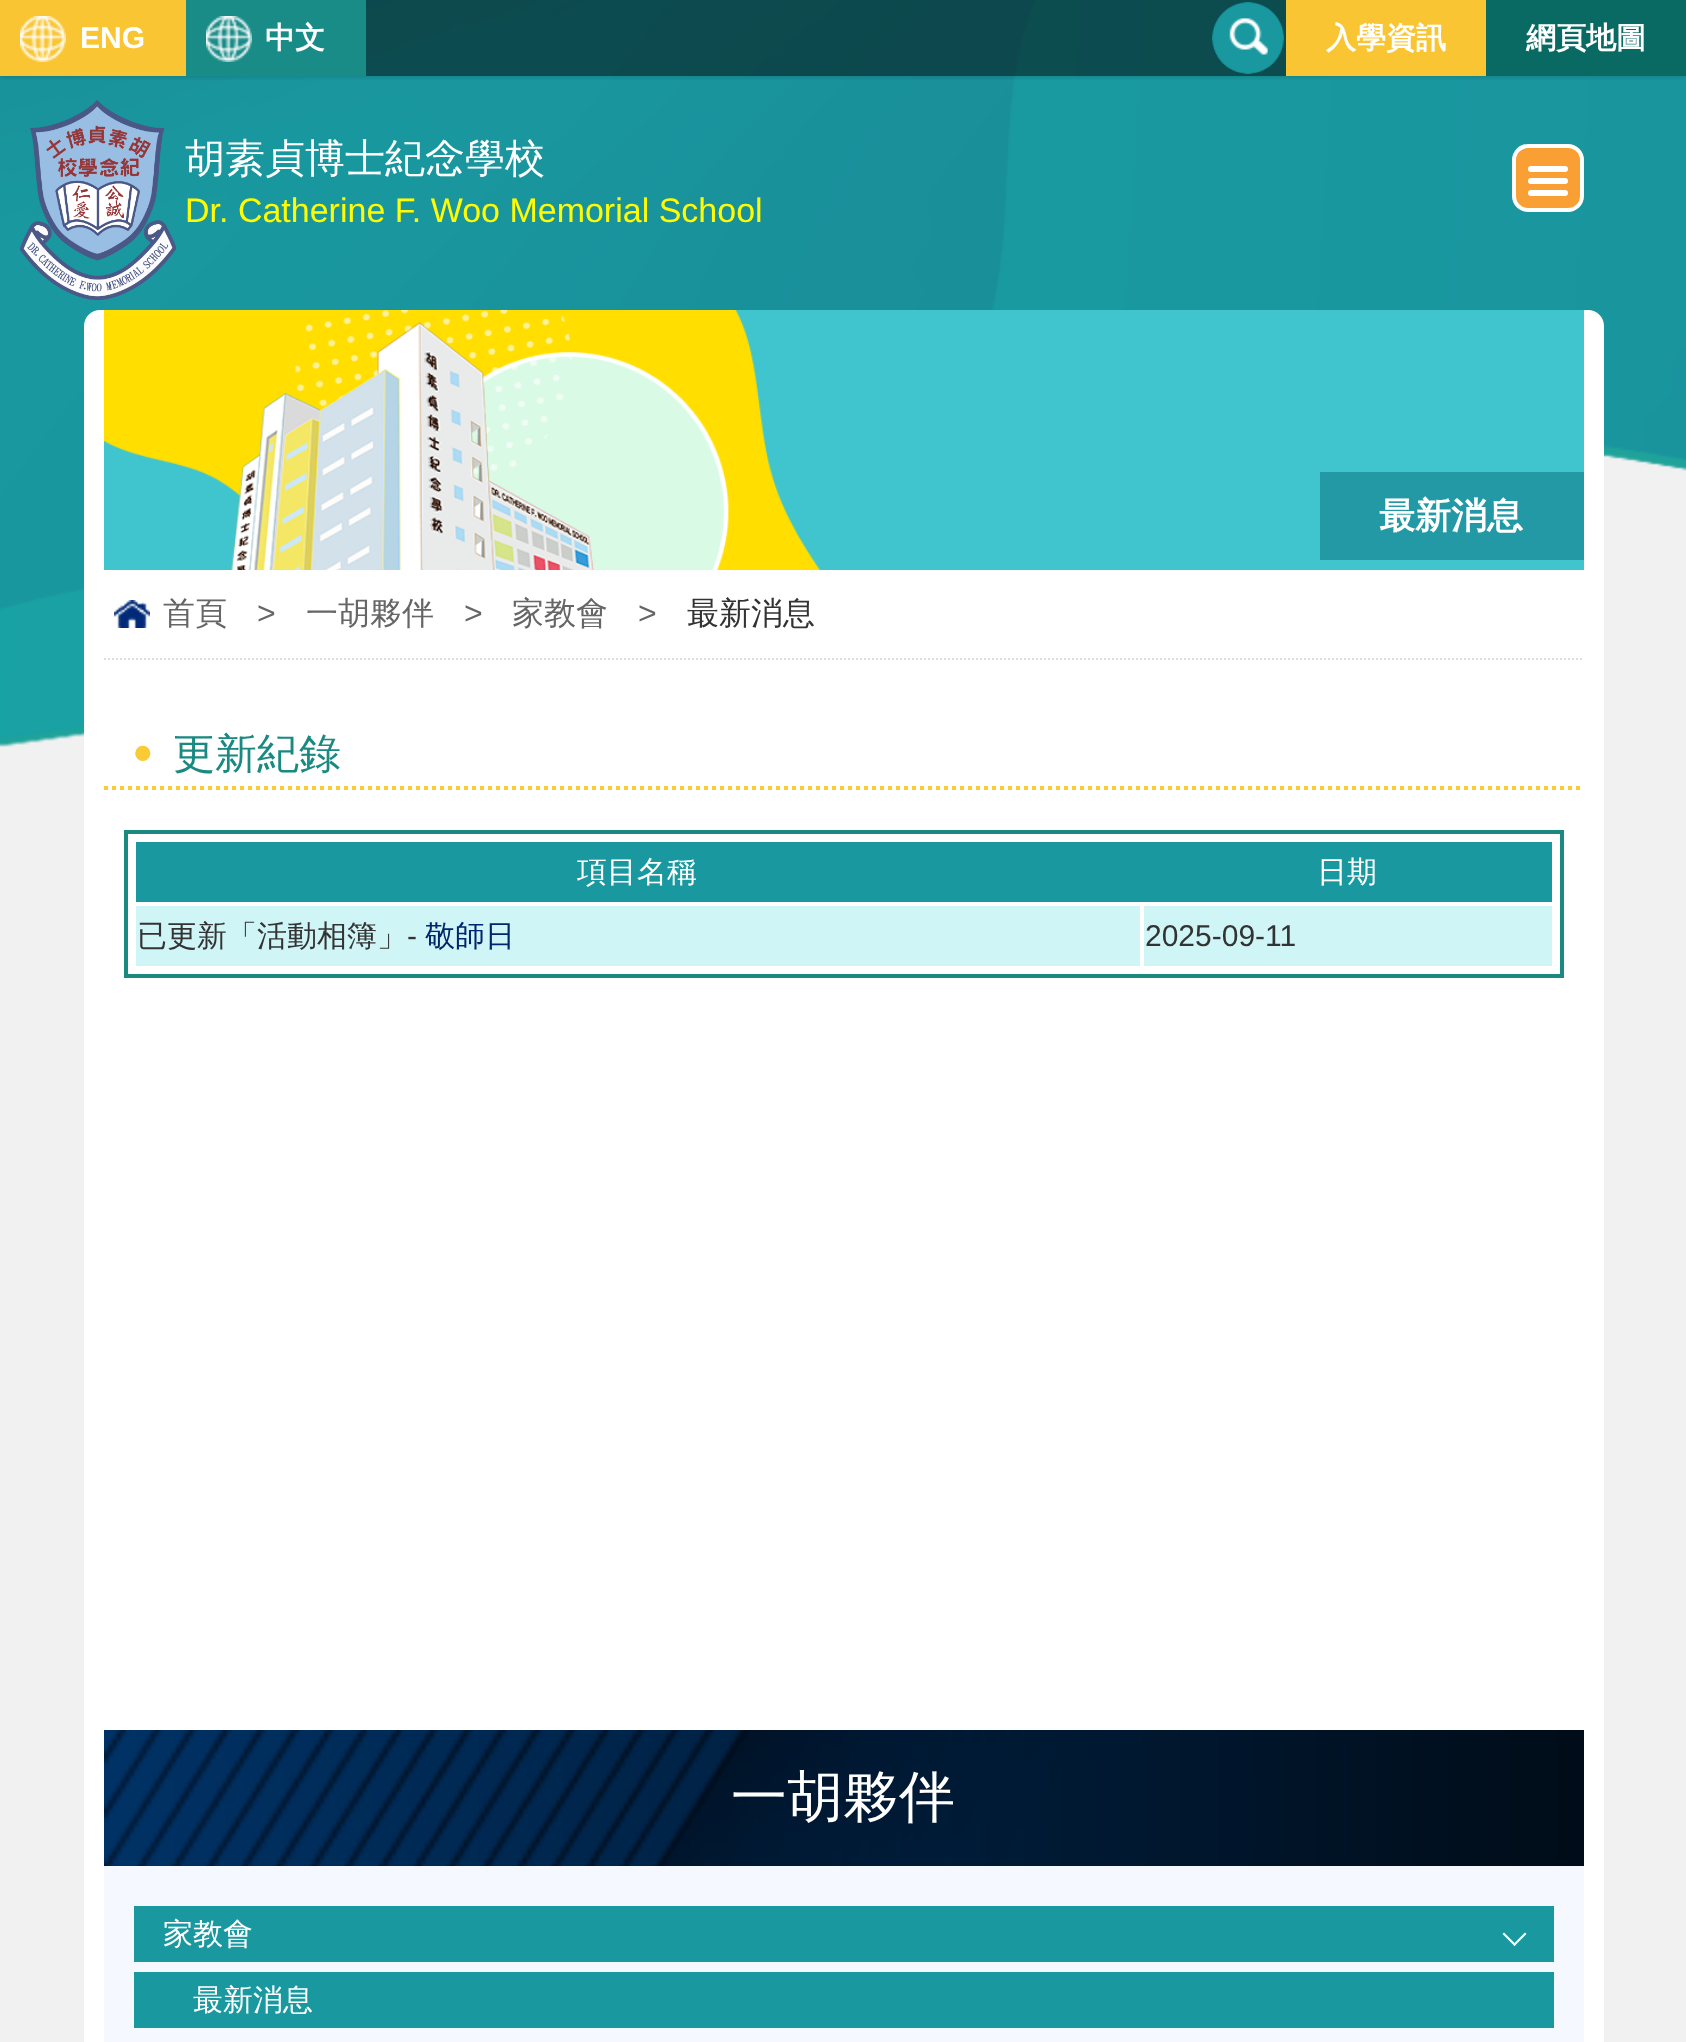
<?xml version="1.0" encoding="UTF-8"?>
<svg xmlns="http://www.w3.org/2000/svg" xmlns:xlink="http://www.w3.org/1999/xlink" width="1686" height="2042">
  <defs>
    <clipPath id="clip1"><rect x="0" y="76" width="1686" height="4" /></clipPath>
  </defs>
  <rect width="100%" height="100%" fill="#f1f1f1" />
  <image x="0" y="0" width="1686" height="747" xlink:href="image1.png" />
  <g clip-path="url(#clip1)">
    <rect width="1686" height="76" fill="#000000" fill-opacity="0.2" filter="blur(3px)" />
  </g>
  <rect x="366" width="920" height="76" fill="#000000" fill-opacity="0.5" />
  <rect width="186" height="76" fill="#fac533" />
  <image x="20" y="16" width="46" height="46" xlink:href="image2.png" />
  <rect x="186" width="180" height="76" fill="#1a8c88" />
  <image x="206" y="16" width="46" height="46" xlink:href="image3.png" />
  <image x="1212" y="2" width="72" height="72" xlink:href="image4.png" />
  <rect x="1286" width="200" height="76" fill="#fac533" />
  <rect x="1486" width="200" height="76" fill="#096a64" />
  <image x="20" y="100" width="156" height="200" xlink:href="image5.png" />
  <path d="M 100 310 h 1488 c 9 0 16 7 16 16 v 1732 h -1520 v -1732 c 0 -9 7 -16 16 -16 z" fill="#ffffff" />
  <rect x="1514" y="146" width="68" height="64" rx="14" fill="#f99f33" stroke="#ffffff" stroke-width="4" />
  <rect x="1528" y="166" width="40" height="6" rx="3" fill="#ffffff" />
  <rect x="1528" y="178" width="40" height="6" rx="3" fill="#ffffff" />
  <rect x="1528" y="190" width="40" height="6" rx="3" fill="#ffffff" />
  <image x="104" y="310" width="1480" height="260" xlink:href="image6.png" />
  <rect x="1320" y="472" width="264" height="88" fill="#2299a4" />
  <path d="M 104 659 h 1480" fill="none" stroke="#dddddd" stroke-width="2" stroke-dasharray="2 2" />
  <image x="114" y="600" width="36" height="28" xlink:href="image7.png" />
  <path d="M 104 788 h 1480" fill="none" stroke="#facb34" stroke-width="4" stroke-dasharray="4 4" />
  <rect x="126" y="832" width="1436" height="144" fill="none" stroke="#1a8982" stroke-width="4" />
  <rect x="136" y="842" width="1416" height="60" fill="#19999f" />
  <rect x="136" y="906" width="1004" height="60" fill="#d0f5f7" />
  <rect x="1144" y="906" width="408" height="60" fill="#d0f5f7" />
  <image x="104" y="1730" width="1480" height="136" xlink:href="image8.png" />
  <rect x="104" y="1866" width="1480" height="176" fill="#f5f9ff" />
  <rect x="134" y="1906" width="1420" height="56" fill="#19999f" />
  <path d="M 1514.5 1946 l -12 -12 l 1.5 -1.5 l 12 12 z" fill="#ffffff" />
  <path d="M 1514.5 1946 l -1.5 -1.5 l 12 -12 l 1.5 1.5 z" fill="#ffffff" />
  <rect x="134" y="1972" width="1420" height="56" fill="#19999f" />
  <text x="80" y="48" style="font-family: Liberation Sans; font-size: 30px; font-weight: bold; fill: #ffffff">ENG</text>
  <text x="265" y="48" style="font-family: WenQuanYi Zen Hei; font-size: 30px; font-weight: bold; fill: #ffffff">中文</text>
  <text x="1326" y="48" style="font-family: WenQuanYi Zen Hei; font-size: 30px; font-weight: bold; fill: #ffffff">入學資訊</text>
  <text x="1526" y="48" style="font-family: WenQuanYi Zen Hei; font-size: 30px; font-weight: bold; fill: #ffffff">網頁地圖</text>
  <text x="185" y="172" style="font-family: WenQuanYi Zen Hei; font-size: 40px; font-weight: 500; fill: #ffffff">胡素貞博士紀念學校</text>
  <text x="185" y="222" style="font-family: Liberation Sans; font-size: 34px; fill: #fffc00">Dr. Catherine F. Woo Memorial School</text>
  <text x="1379" y="528" style="font-family: WenQuanYi Zen Hei; font-size: 36px; font-weight: bold; fill: #ffffff">最新消息</text>
  <text x="163" y="624" style="font-family: WenQuanYi Zen Hei; font-size: 32px; font-weight: 500; fill: #666666">首頁</text>
  <text x="257" y="624" style="font-family: Liberation Sans; font-size: 32px; fill: #666666">&gt;</text>
  <text x="306" y="624" style="font-family: WenQuanYi Zen Hei; font-size: 32px; font-weight: 500; fill: #666666">一胡夥伴</text>
  <text x="464" y="624" style="font-family: Liberation Sans; font-size: 32px; fill: #666666">&gt;</text>
  <text x="512" y="624" style="font-family: WenQuanYi Zen Hei; font-size: 32px; font-weight: 500; fill: #666666">家教會</text>
  <text x="638" y="624" style="font-family: Liberation Sans; font-size: 32px; fill: #666666">&gt;</text>
  <text x="687" y="624" style="font-family: WenQuanYi Zen Hei; font-size: 32px; font-weight: 500; fill: #333333">最新消息</text>
  <text x="133" y="772" style="font-family: Liberation Sans; font-size: 56px; fill: #facb34">•</text>
  <text x="173" y="768" style="font-family: WenQuanYi Zen Hei; font-size: 42px; font-weight: 500; fill: #1a8982">更新紀錄</text>
  <text x="577" y="882" style="font-family: WenQuanYi Zen Hei; font-size: 30px; font-weight: 500; fill: #ffffff">項目名稱</text>
  <text x="1317" y="882" style="font-family: WenQuanYi Zen Hei; font-size: 30px; font-weight: 500; fill: #ffffff">日期</text>
  <text x="137" y="946" style="font-family: WenQuanYi Zen Hei; font-size: 30px; font-weight: 500; fill: #333333">已更新「活動相簿」</text>
  <text x="407" y="946" style="font-family: Liberation Sans; font-size: 30px; fill: #333333">-</text>
  <text x="425" y="946" style="font-family: WenQuanYi Zen Hei; font-size: 30px; font-weight: 500; fill: #00266e">敬師日</text>
  <text x="1145" y="946" style="font-family: Liberation Sans; font-size: 30px; fill: #333333">2025-09-11</text>
  <text x="731" y="1816" style="font-family: WenQuanYi Zen Hei; font-size: 56px; font-weight: 500; fill: #ffffff">一胡夥伴</text>
  <text x="163" y="1944" style="font-family: WenQuanYi Zen Hei; font-size: 30px; font-weight: 500; fill: #ffffff">家教會</text>
  <text x="193" y="2010" style="font-family: WenQuanYi Zen Hei; font-size: 30px; font-weight: 500; fill: #ffffff">最新消息</text>
</svg>
